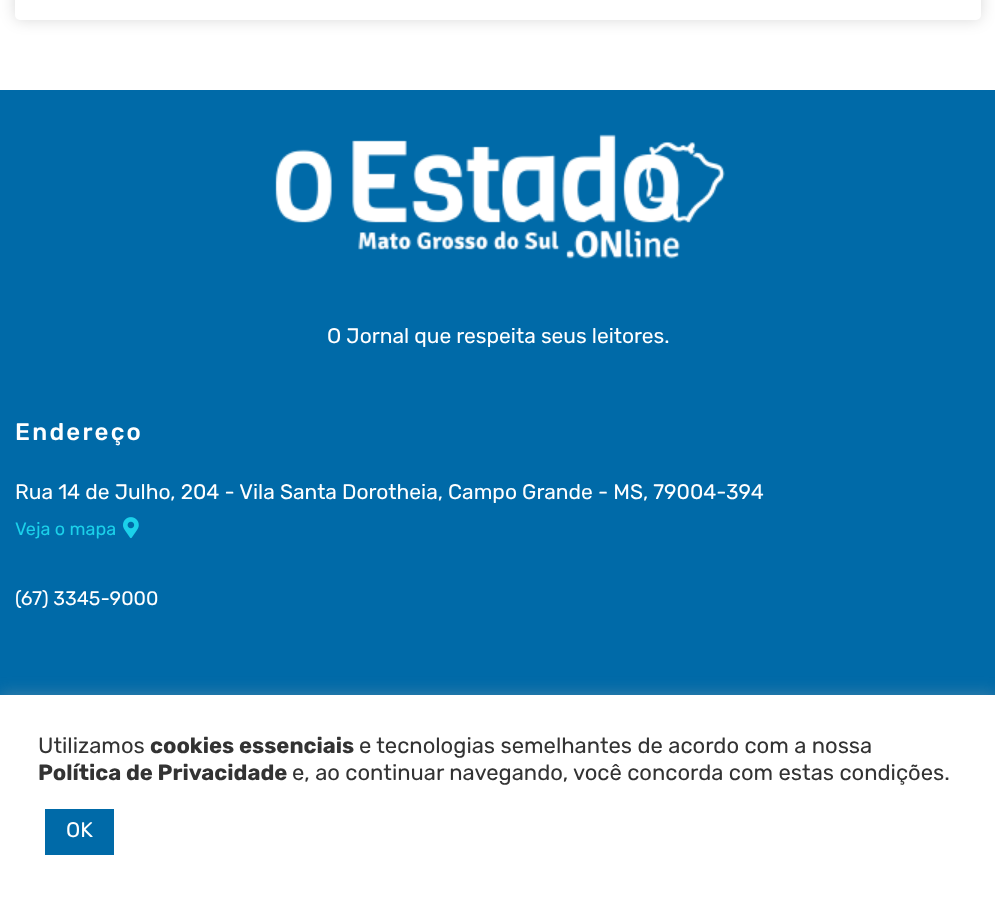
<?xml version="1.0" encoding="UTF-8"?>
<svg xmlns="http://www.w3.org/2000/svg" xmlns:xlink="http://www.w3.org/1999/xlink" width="995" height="900">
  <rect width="100%" height="100%" fill="#ffffff" />
  <rect x="15" y="-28" width="966" height="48" rx="5" fill="#000000" fill-opacity="0.15" filter="blur(7.5px)" />
  <rect x="15" y="-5" width="966" height="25" rx="5" fill="#ffffff" />
  <rect y="90" width="995" height="605" fill="#006aa8" />
  <image x="275" y="134" width="450" height="125" xlink:href="image1.png" />
  <image x="123" y="517" width="16" height="22" xlink:href="image2.png" />
  <rect y="693" width="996" height="206" fill="#acabab" fill-opacity="0.3" filter="blur(7.5px)" />
  <rect y="695" width="995" height="205" fill="#ffffff" />
  <rect x="45" y="809" width="69" height="46" fill="#006aa8" />
  <text x="327" y="343" style="font-family: Rubik; font-size: 21px; fill: #ffffff">O Jornal que respeita seus leitores.</text>
  <text x="15" y="440" style="font-family: Rubik; font-size: 24px; font-weight: 500; letter-spacing: 2.25px; fill: #ffffff">Endereço</text>
  <text x="15" y="499" style="font-family: Rubik; font-size: 21px; fill: #ffffff">Rua 14 de Julho, 204 - Vila Santa Dorotheia, Campo Grande - MS, 79004-394</text>
  <text x="15" y="535" style="font-family: Rubik; font-size: 18px; fill: #1bd1ea">Veja o mapa</text>
  <text x="15" y="605" style="font-family: Rubik; font-size: 19.5px; fill: #ffffff">(67) 3345-9000</text>
  <text x="38" y="753" style="font-family: Rubik; font-size: 22px; fill: #333333">Utilizamos</text>
  <text x="150" y="753" style="font-family: Rubik; font-size: 22px; font-weight: bold; fill: #333333">cookies essenciais</text>
  <text x="359" y="753" style="font-family: Rubik; font-size: 22px; fill: #333333">e tecnologias semelhantes de acordo com a nossa</text>
  <text x="38" y="780" style="font-family: Rubik; font-size: 22px; font-weight: bold; fill: #333333">Política de Privacidade</text>
  <text x="292" y="780" style="font-family: Rubik; font-size: 22px; fill: #333333">e, ao continuar navegando, você concorda com estas condições.</text>
  <text x="66" y="837" style="font-family: Rubik; font-size: 21px; fill: #ffffff">OK</text>
</svg>
